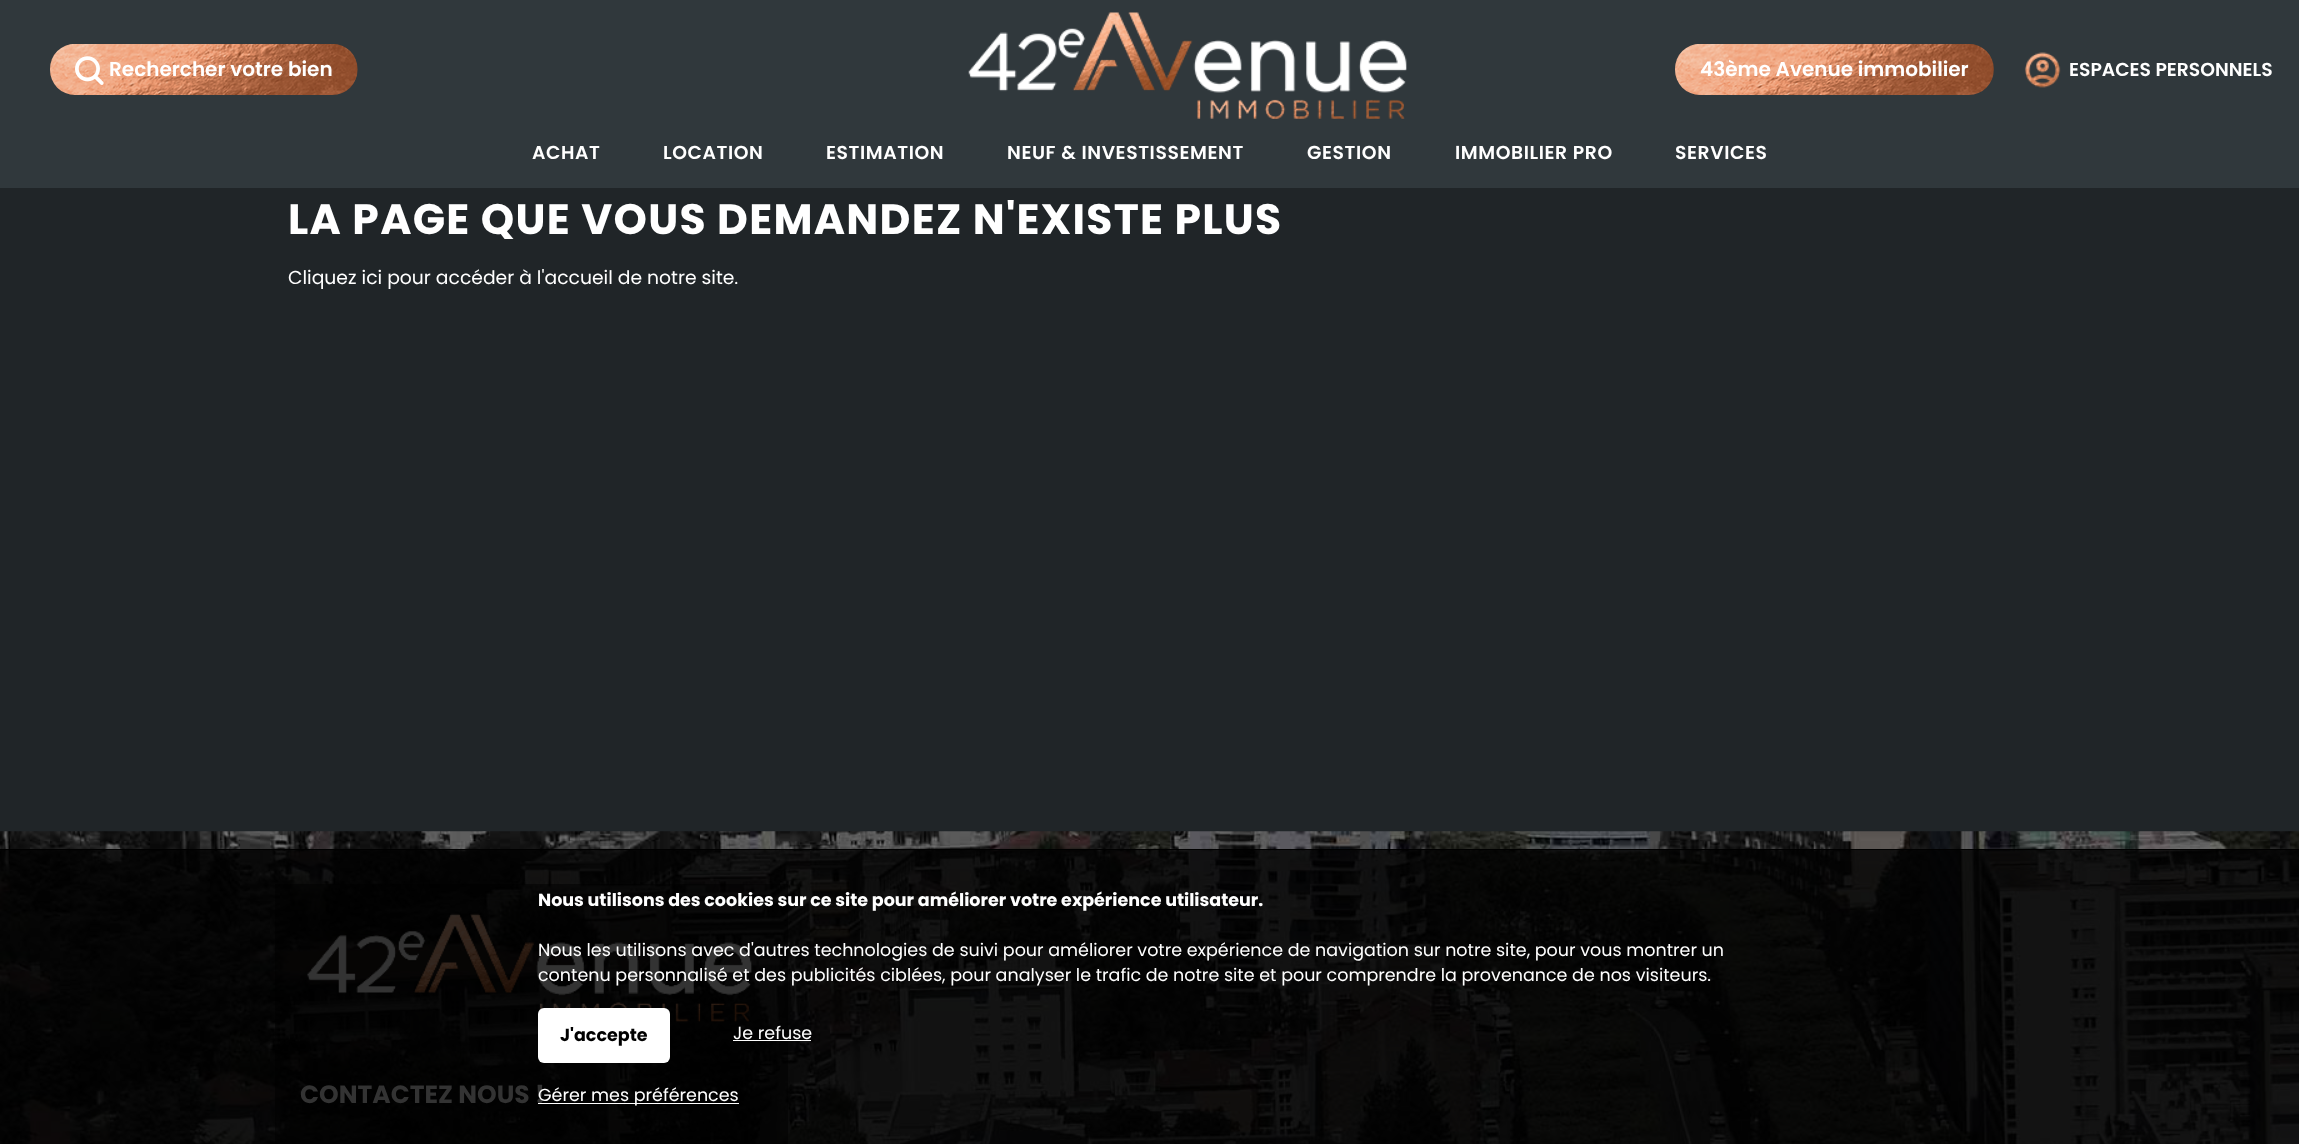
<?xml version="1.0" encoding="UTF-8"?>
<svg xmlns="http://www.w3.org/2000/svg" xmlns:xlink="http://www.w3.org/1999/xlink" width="2299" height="1144">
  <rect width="100%" height="100%" fill="#202528" />
  <rect width="2299" height="188" fill="#30383c" />
  <image x="50" y="44" width="308" height="51" xlink:href="image1.png" />
  <image x="75" y="56" width="29" height="29" xlink:href="image2.png" />
  <image x="968" y="12" width="439" height="107" xlink:href="image3.png" />
  <image x="1675" y="44" width="319" height="51" xlink:href="image4.png" />
  <image x="2024" y="52" width="37" height="36" xlink:href="image5.png" />
  <image x="0" y="831" width="2299" height="313" xlink:href="image6.png" />
  <rect x="275" y="884" width="513" height="260" fill="#000000" fill-opacity="0.5" />
  <image x="307" y="913" width="446" height="109" xlink:href="image7.png" />
  <rect y="849" width="2299" height="1" fill="#000000" />
  <rect x="538" y="1008" width="132" height="55" rx="6" fill="#ffffff" />
  <rect x="733" y="1040" width="78" height="1" fill="#ffffff" />
  <text x="109" y="76" style="font-family: Poppins; font-size: 20px; font-weight: 600; fill: #ffffff">Rechercher votre bien</text>
  <text x="1700" y="76" style="font-family: Poppins; font-size: 20px; font-weight: 600; fill: #ffffff">43ème Avenue immobilier</text>
  <text x="2069" y="76" style="font-family: Poppins; font-size: 18.75px; font-weight: 600; fill: #ffffff">ESPACES PERSONNELS</text>
  <text x="532" y="159" style="font-family: Poppins; font-size: 18.75px; font-weight: 600; letter-spacing: 0.6px; fill: #ffffff">ACHAT</text>
  <text x="663" y="159" style="font-family: Poppins; font-size: 18.75px; font-weight: 600; letter-spacing: 0.6px; fill: #ffffff">LOCATION</text>
  <text x="826" y="159" style="font-family: Poppins; font-size: 18.75px; font-weight: 600; letter-spacing: 0.6px; fill: #ffffff">ESTIMATION</text>
  <text x="1007" y="159" style="font-family: Poppins; font-size: 18.75px; font-weight: 600; letter-spacing: 0.6px; fill: #ffffff">NEUF &amp; INVESTISSEMENT</text>
  <text x="1307" y="159" style="font-family: Poppins; font-size: 18.75px; font-weight: 600; letter-spacing: 0.6px; fill: #ffffff">GESTION</text>
  <text x="1455" y="159" style="font-family: Poppins; font-size: 18.75px; font-weight: 600; letter-spacing: 0.6px; fill: #ffffff">IMMOBILIER PRO</text>
  <text x="1675" y="159" style="font-family: Poppins; font-size: 18.75px; font-weight: 600; letter-spacing: 0.6px; fill: #ffffff">SERVICES</text>
  <text x="288" y="234" style="font-family: Poppins; font-size: 42.5px; font-weight: bold; letter-spacing: 1.25px; fill: #ffffff">LA PAGE QUE VOUS DEMANDEZ N'EXISTE PLUS</text>
  <text x="288" y="284" style="font-family: Poppins; font-size: 18.75px; fill: #ffffff">Cliquez ici pour accéder à l'accueil de notre site.</text>
  <text x="300" y="1103" style="font-family: Poppins; font-size: 25px; font-weight: bold; fill: #333333">CONTACTEZ NOUS !</text>
  <text x="538" y="906" style="font-family: Poppins; font-size: 17.5px; font-weight: bold; fill: #ffffff">Nous utilisons des cookies sur ce site pour améliorer votre expérience utilisateur.</text>
  <text x="538" y="956" style="font-family: Poppins; font-size: 17.5px; fill: #ffffff">Nous les utilisons avec d'autres technologies de suivi pour améliorer votre expérience de navigation sur notre site, pour vous montrer un</text>
  <text x="538" y="981" style="font-family: Poppins; font-size: 17.5px; fill: #ffffff">contenu personnalisé et des publicités ciblées, pour analyser le trafic de notre site et pour comprendre la provenance de nos visiteurs.</text>
  <text x="560" y="1041" style="font-family: Poppins; font-size: 17.5px; font-weight: bold; fill: #000000">J'accepte</text>
  <text x="733" y="1039" style="font-family: Poppins; font-size: 17.5px; fill: #ffffff">Je refuse</text>
  <rect x="538" y="1103" width="201" height="1" fill="#ffffff" />
  <text x="538" y="1101" style="font-family: Poppins; font-size: 17.5px; fill: #ffffff">Gérer mes préférences</text>
</svg>
